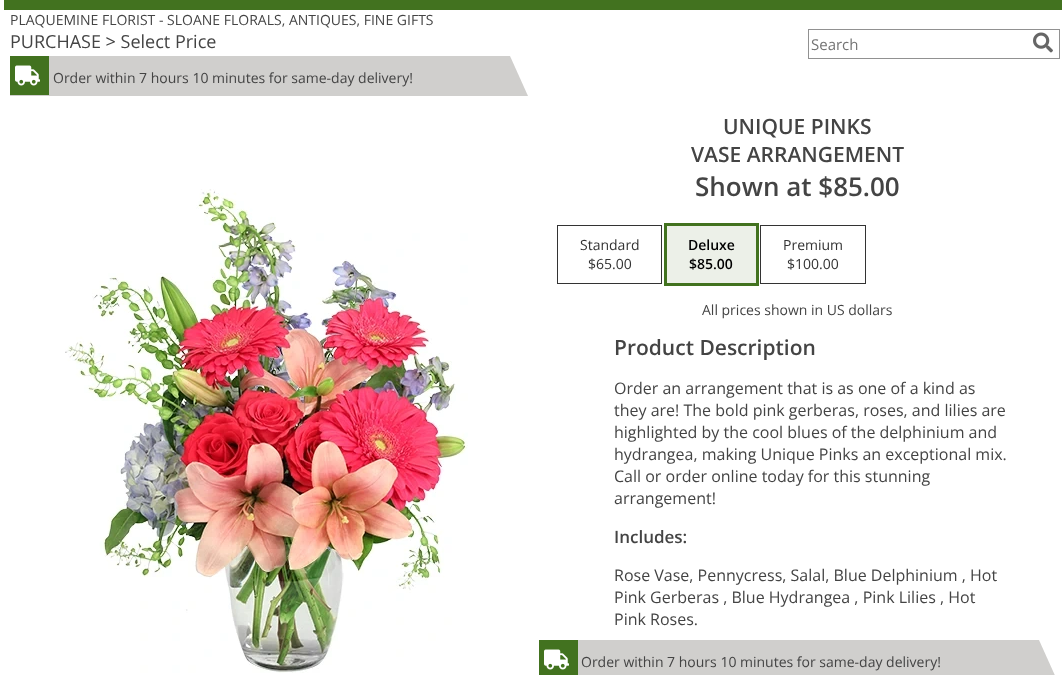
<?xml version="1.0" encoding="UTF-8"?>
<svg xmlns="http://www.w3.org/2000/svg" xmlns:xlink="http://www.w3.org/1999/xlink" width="1062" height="675">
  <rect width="100%" height="100%" fill="#ffffff" />
  <rect x="4" width="1058" height="10" fill="#42721f" />
  <rect x="808.5" y="29.5" width="251" height="29" fill="none" stroke="#919191" />
  <image x="1033" y="32" width="20" height="21" xlink:href="image1.png" />
  <path d="M 528 96 h -518 v -40 h 500 z" fill="#d0cfcd" />
  <rect x="10" y="56" width="39" height="39" fill="#42721f" />
  <image x="15" y="65" width="25" height="21" xlink:href="image2.png" />
  <image x="65" y="189" width="403" height="484" xlink:href="image3.png" />
  <rect x="557.5" y="225.5" width="104" height="58" fill="none" stroke="#333333" />
  <rect x="665.5" y="224.5" width="92" height="60" fill="none" stroke="#42721f" stroke-width="3" />
  <rect x="667" y="226" width="89" height="57" fill="#ecf0e8" />
  <rect x="760.5" y="225.5" width="105" height="58" fill="none" stroke="#333333" />
  <path d="M 1057 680 h -518 v -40 h 500 z" fill="#d0cfcd" />
  <rect x="539" y="640" width="39" height="35" fill="#42721f" />
  <image x="544" y="649" width="25" height="21" xlink:href="image2.png" />
  <text x="10" y="25" style="font-family: Open Sans; font-size: 14px; fill: #444444">PLAQUEMINE FLORIST - SLOANE FLORALS, ANTIQUES, FINE GIFTS</text>
  <text x="10" y="48" style="font-family: Open Sans; font-size: 18px; fill: #444444">PURCHASE &gt; Select Price</text>
  <text x="811" y="50" style="font-family: Open Sans; font-size: 15px; fill: #757575">Search</text>
  <text x="53" y="83" style="font-family: Open Sans; font-size: 14px; fill: #444444">Order within 7 hours 10 minutes for same-day delivery!</text>
  <text x="723" y="134" style="font-family: Open Sans; font-size: 21px; font-weight: 600; fill: #444444">UNIQUE PINKS</text>
  <text x="691" y="162" style="font-family: Open Sans; font-size: 21px; font-weight: 600; fill: #444444">VASE ARRANGEMENT</text>
  <text x="695" y="196" style="font-family: Open Sans; font-size: 26px; font-weight: 600; fill: #444444">Shown at $85.00</text>
  <text x="580" y="250" style="font-family: Open Sans; font-size: 14px; fill: #333333">Standard</text>
  <text x="588" y="269" style="font-family: Open Sans; font-size: 14px; fill: #333333">$65.00</text>
  <text x="688" y="250" style="font-family: Open Sans; font-size: 14px; font-weight: 600; fill: #000000">Deluxe</text>
  <text x="689" y="269" style="font-family: Open Sans; font-size: 14px; font-weight: 600; fill: #000000">$85.00</text>
  <text x="783" y="250" style="font-family: Open Sans; font-size: 14px; fill: #333333">Premium</text>
  <text x="787" y="269" style="font-family: Open Sans; font-size: 14px; fill: #333333">$100.00</text>
  <text x="702" y="315" style="font-family: Open Sans; font-size: 14px; fill: #444444">All prices shown in US dollars</text>
  <text x="614" y="355" style="font-family: Open Sans; font-size: 21px; font-weight: 600; fill: #444444">Product Description</text>
  <text x="614" y="394" style="font-family: Open Sans; font-size: 16px; fill: #444444">Order an arrangement that is as one of a kind as</text>
  <text x="614" y="416" style="font-family: Open Sans; font-size: 16px; fill: #444444">they are! The bold pink gerberas, roses, and lilies are</text>
  <text x="614" y="438" style="font-family: Open Sans; font-size: 16px; fill: #444444">highlighted by the cool blues of the delphinium and</text>
  <text x="614" y="460" style="font-family: Open Sans; font-size: 16px; fill: #444444">hydrangea, making Unique Pinks an exceptional mix.</text>
  <text x="614" y="482" style="font-family: Open Sans; font-size: 16px; fill: #444444">Call or order online today for this stunning</text>
  <text x="614" y="504" style="font-family: Open Sans; font-size: 16px; fill: #444444">arrangement!</text>
  <text x="614" y="543" style="font-family: Open Sans; font-size: 17px; font-weight: 600; fill: #444444">Includes:</text>
  <text x="614" y="581" style="font-family: Open Sans; font-size: 16px; fill: #444444">Rose Vase, Pennycress, Salal, Blue Delphinium , Hot</text>
  <text x="614" y="603" style="font-family: Open Sans; font-size: 16px; fill: #444444">Pink Gerberas , Blue Hydrangea , Pink Lilies , Hot</text>
  <text x="614" y="625" style="font-family: Open Sans; font-size: 16px; fill: #444444">Pink Roses.</text>
  <text x="581" y="667" style="font-family: Open Sans; font-size: 14px; fill: #444444">Order within 7 hours 10 minutes for same-day delivery!</text>
</svg>
